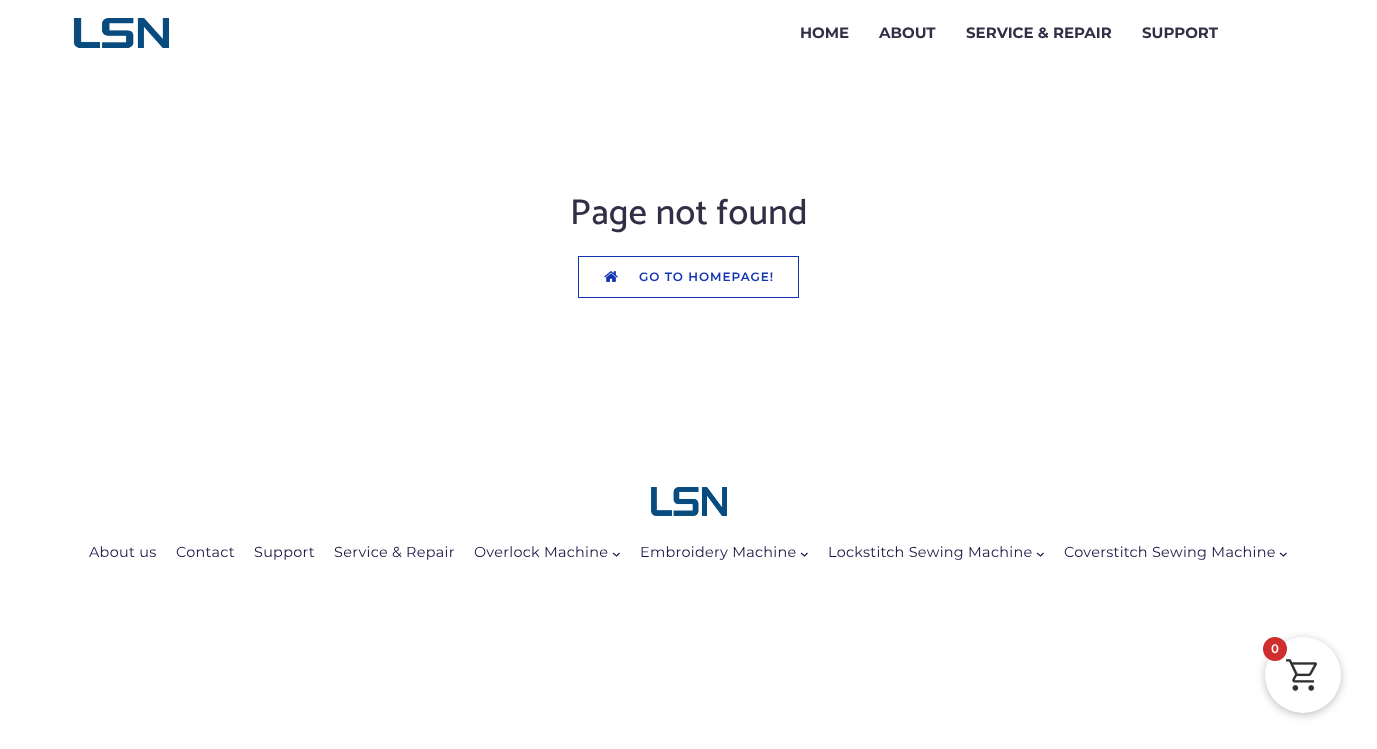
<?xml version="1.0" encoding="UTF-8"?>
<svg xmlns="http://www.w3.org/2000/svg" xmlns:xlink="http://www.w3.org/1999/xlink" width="1377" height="749">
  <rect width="100%" height="100%" fill="#ffffff" />
  <image x="73" y="18" width="96" height="30" xlink:href="image1.png" />
  <rect x="578.5" y="256.5" width="220" height="41" fill="none" stroke="#1335b0" />
  <image x="604" y="271" width="14" height="11" xlink:href="image2.png" />
  <image x="651" y="487" width="76" height="29" xlink:href="image3.png" />
  <path d="M 613 553 l 3.5 3 l 3 -3" fill="none" stroke="#1b1745" stroke-width="1.1" />
  <path d="M 801 553 l 3.5 3 l 3 -3" fill="none" stroke="#1b1745" stroke-width="1.1" />
  <path d="M 1037 553 l 3.5 3 l 3 -3" fill="none" stroke="#1b1745" stroke-width="1.1" />
  <path d="M 1280 553 l 3.5 3 l 3 -3" fill="none" stroke="#1b1745" stroke-width="1.1" />
  <rect x="1265" y="639" width="76" height="76" rx="38" fill="#000000" fill-opacity="0.25" filter="blur(4px)" />
  <circle cx="1303" cy="675" r="38" fill="#ffffff" />
  <image x="1286" y="659" width="31" height="32" xlink:href="image4.png" />
  <circle cx="1275" cy="649" r="12" fill="#cf2e2e" />
  <text x="800" y="38" style="font-family: Montserrat; font-size: 15px; font-weight: bold; fill: #312f46">HOME</text>
  <text x="879" y="38" style="font-family: Montserrat; font-size: 15px; font-weight: bold; fill: #312f46">ABOUT</text>
  <text x="966" y="38" style="font-family: Montserrat; font-size: 15px; font-weight: bold; fill: #312f46">SERVICE &amp; REPAIR</text>
  <text x="1142" y="38" style="font-family: Montserrat; font-size: 15px; font-weight: bold; fill: #312f46">SUPPORT</text>
  <text x="570" y="224" style="font-family: Catamaran; font-size: 36px; font-weight: 500; letter-spacing: 0.3px; fill: #312f46">Page not found</text>
  <text x="639" y="281" style="font-family: Montserrat; font-size: 12px; font-weight: 600; letter-spacing: 1px; fill: #1335b0">GO TO HOMEPAGE!</text>
  <text x="89" y="557" style="font-family: Montserrat; font-size: 14.4px; letter-spacing: 0.3px; fill: #1b1745">About us</text>
  <text x="176" y="557" style="font-family: Montserrat; font-size: 14.4px; letter-spacing: 0.3px; fill: #1b1745">Contact</text>
  <text x="254" y="557" style="font-family: Montserrat; font-size: 14.4px; letter-spacing: 0.3px; fill: #1b1745">Support</text>
  <text x="334" y="557" style="font-family: Montserrat; font-size: 14.4px; letter-spacing: 0.3px; fill: #1b1745">Service &amp; Repair</text>
  <text x="474" y="557" style="font-family: Montserrat; font-size: 14.4px; letter-spacing: 0.3px; fill: #1b1745">Overlock Machine</text>
  <text x="640" y="557" style="font-family: Montserrat; font-size: 14.4px; letter-spacing: 0.3px; fill: #1b1745">Embroidery Machine</text>
  <text x="828" y="557" style="font-family: Montserrat; font-size: 14.4px; letter-spacing: 0.3px; fill: #1b1745">Lockstitch Sewing Machine</text>
  <text x="1064" y="557" style="font-family: Montserrat; font-size: 14.4px; letter-spacing: 0.3px; fill: #1b1745">Coverstitch Sewing Machine</text>
  <text x="1271" y="653" style="font-family: Inter; font-size: 12px; font-weight: 600; fill: #ffffff">0</text>
</svg>
